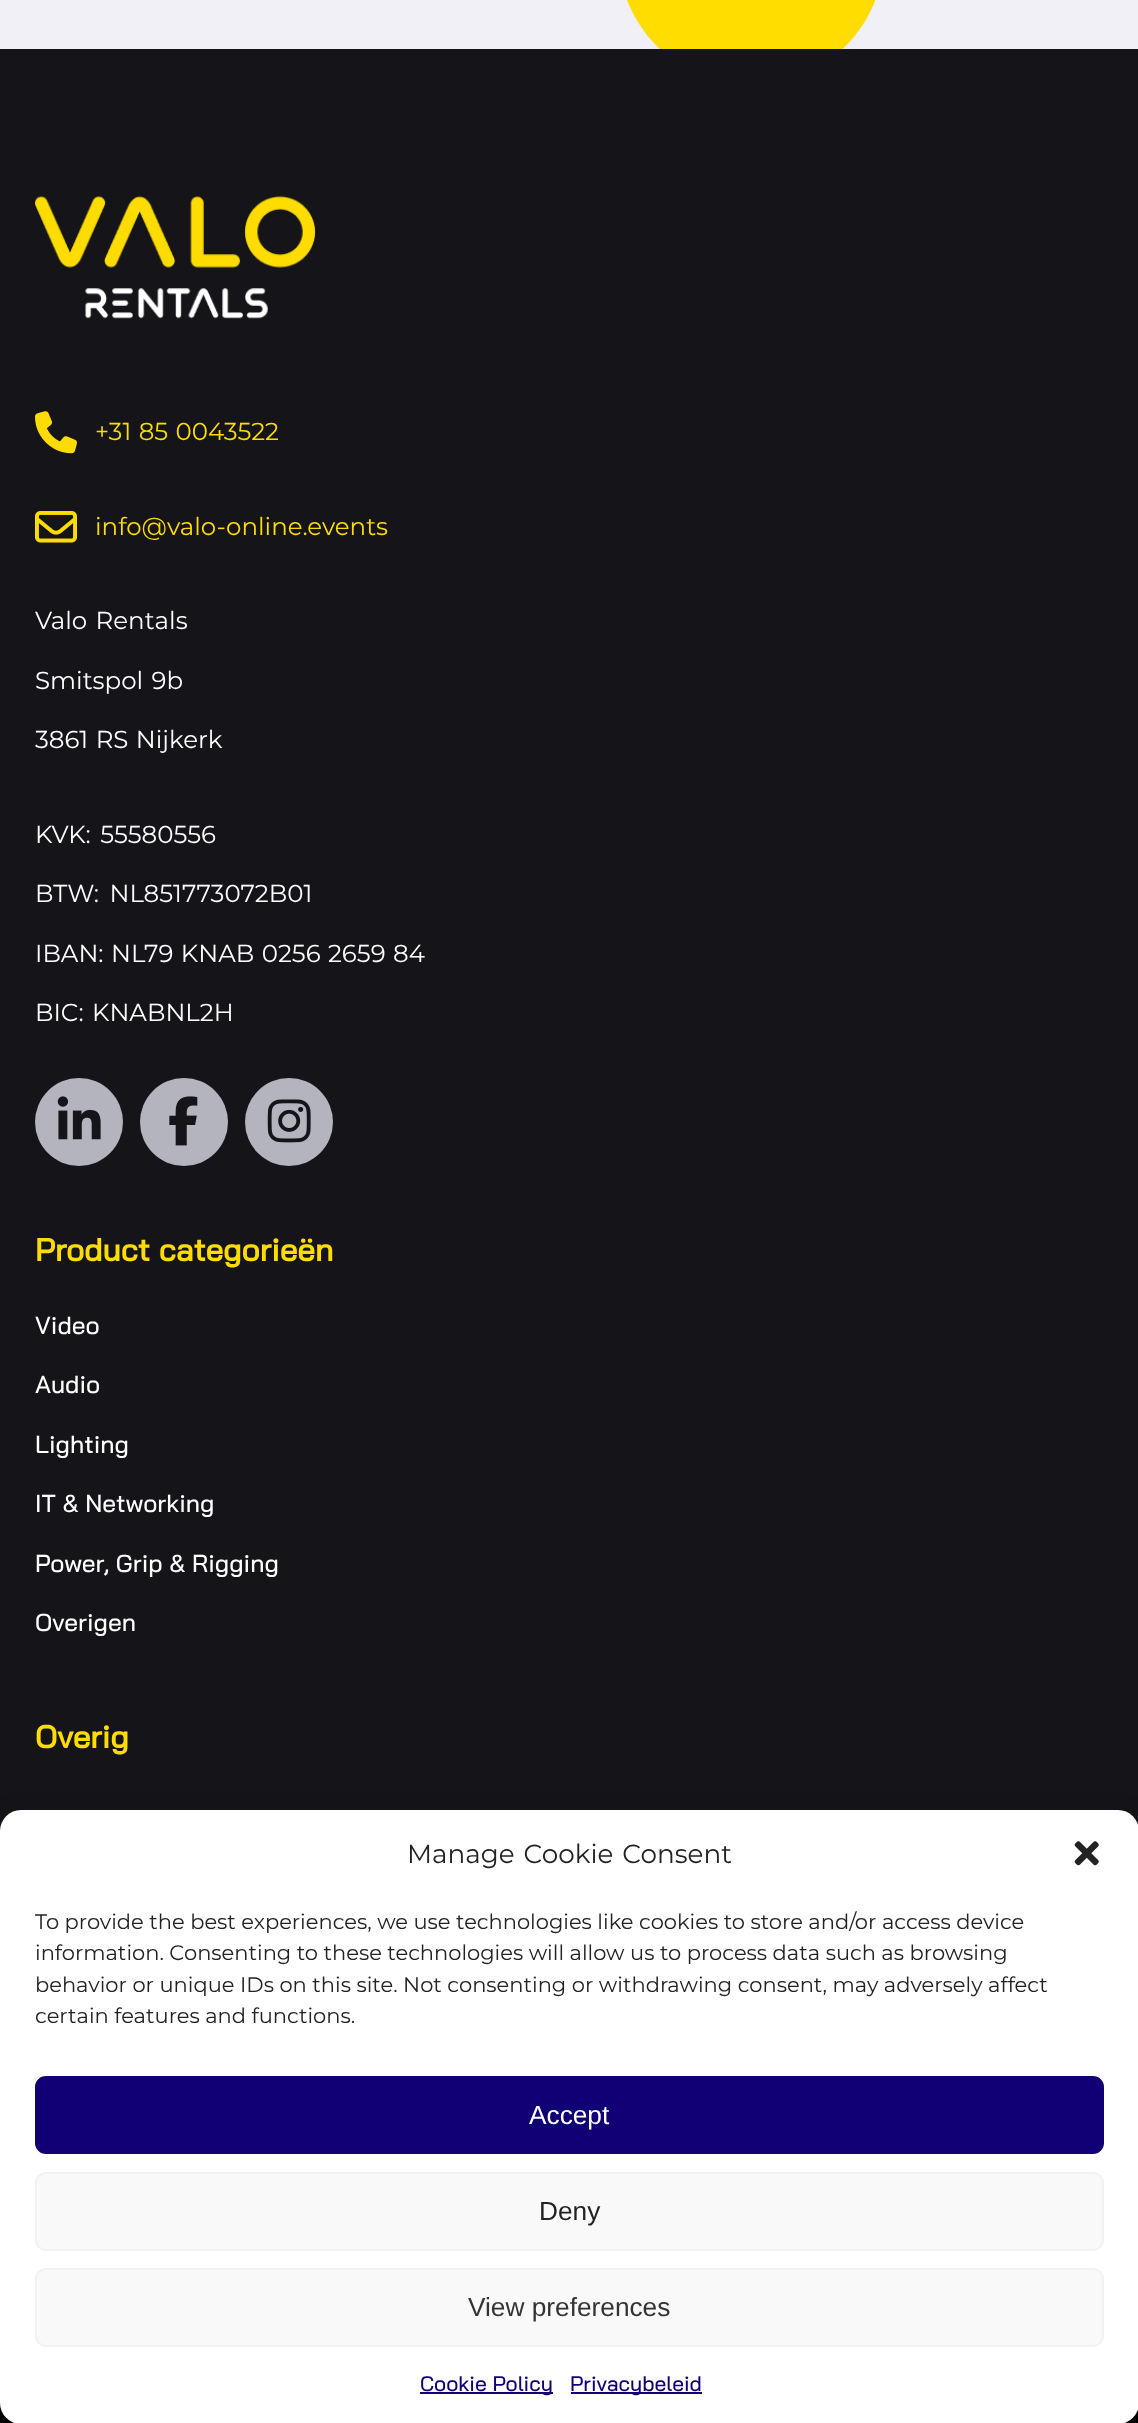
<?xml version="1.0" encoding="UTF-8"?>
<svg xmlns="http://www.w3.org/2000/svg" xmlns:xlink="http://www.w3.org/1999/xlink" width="1138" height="2423">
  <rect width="100%" height="100%" fill="#ffffff" />
  <image x="0" y="0" width="1138" height="49" xlink:href="image1.png" />
  <rect y="49" width="1138" height="1782" fill="#141419" />
  <image x="35" y="196" width="281" height="123" xlink:href="image2.png" />
  <image x="35" y="411" width="42" height="43" xlink:href="image3.png" />
  <image x="35" y="511" width="42" height="32" xlink:href="image4.png" />
  <circle cx="79" cy="1122" r="44" fill="#b4b4be" />
  <image x="57" y="1096" width="44" height="44" xlink:href="image5.png" />
  <circle cx="184" cy="1122" r="44" fill="#b4b4be" />
  <image x="169" y="1096" width="29" height="50" xlink:href="image6.png" />
  <circle cx="289" cy="1122" r="44" fill="#b4b4be" />
  <image x="267" y="1099" width="44" height="44" xlink:href="image7.png" />
  <rect y="2403" width="1138" height="20" fill="#000000" />
  <rect y="1827" width="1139" height="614" rx="21" fill="#000000" fill-opacity="0.19" filter="blur(17.5px)" />
  <rect y="1810" width="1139" height="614" rx="21" fill="#ffffff" />
  <image x="1074" y="1841" width="25" height="25" xlink:href="image8.png" />
  <rect x="36" y="2077" width="1067" height="76" rx="10" fill="#110075" stroke="#110075" stroke-width="2" />
  <rect x="36" y="2173" width="1067" height="77" rx="10" fill="#f9f9f9" stroke="#f2f2f2" stroke-width="2" />
  <rect x="36" y="2269" width="1067" height="77" rx="10" fill="#f9f9f9" stroke="#f2f2f2" stroke-width="2" />
  <rect x="420" y="2392" width="133" height="2" fill="#110075" />
  <rect x="571" y="2392" width="131" height="2" fill="#110075" />
  <text x="95" y="440" word-spacing="1" style="font-family: Montserrat; font-size: 24.5px; fill: #ffdc00">+31 85 0043522</text>
  <text x="95" y="535" style="font-family: Montserrat; font-size: 24.5px; fill: #ffdc00">info@valo-online.events</text>
  <text x="35" y="629" word-spacing="2" style="font-family: Montserrat; font-size: 24.5px; fill: #ffffff">Valo Rentals</text>
  <text x="35" y="689" word-spacing="2" style="font-family: Montserrat; font-size: 24.5px; fill: #ffffff">Smitspol 9b</text>
  <text x="35" y="748" word-spacing="1" style="font-family: Montserrat; font-size: 24.5px; fill: #ffffff">3861 RS Nijkerk</text>
  <text x="35" y="843" word-spacing="3" style="font-family: Montserrat; font-size: 24.5px; fill: #ffffff">KVK: 55580556</text>
  <text x="35" y="902" word-spacing="4" style="font-family: Montserrat; font-size: 24.5px; fill: #ffffff">BTW: NL851773072B01</text>
  <text x="35" y="962" word-spacing="1" style="font-family: Montserrat; font-size: 24.5px; fill: #ffffff">IBAN: NL79 KNAB 0256 2659 84</text>
  <text x="35" y="1021" word-spacing="2" style="font-family: Montserrat; font-size: 24.5px; fill: #ffffff">BIC: KNABNL2H</text>
  <text x="35" y="1261" style="font-family: Bai Jamjuree; font-size: 31.5px; font-weight: bold; fill: #ffdc00">Product categorieën</text>
  <text x="35" y="1334" style="font-family: Bai Jamjuree; font-size: 24.5px; font-weight: 500; fill: #ffffff">Video</text>
  <text x="35" y="1393" style="font-family: Bai Jamjuree; font-size: 24.5px; font-weight: 500; fill: #ffffff">Audio</text>
  <text x="35" y="1453" style="font-family: Bai Jamjuree; font-size: 24.5px; font-weight: 500; fill: #ffffff">Lighting</text>
  <text x="35" y="1512" style="font-family: Bai Jamjuree; font-size: 24.5px; font-weight: 500; fill: #ffffff">IT &amp; Networking</text>
  <text x="35" y="1572" style="font-family: Bai Jamjuree; font-size: 24.5px; font-weight: 500; fill: #ffffff">Power, Grip &amp; Rigging</text>
  <text x="35" y="1631" style="font-family: Bai Jamjuree; font-size: 24.5px; font-weight: 500; fill: #ffffff">Overigen</text>
  <text x="35" y="1748" style="font-family: Bai Jamjuree; font-size: 31.5px; font-weight: bold; fill: #ffdc00">Overig</text>
  <text x="407" y="1863" word-spacing="2" style="font-family: Montserrat; font-size: 26.25px; fill: #222222">Manage Cookie Consent</text>
  <text x="35" y="1929" style="font-family: Montserrat; font-size: 21px; fill: #222222">To provide the best experiences, we use technologies like cookies to store and/or access device</text>
  <text x="35" y="1960" style="font-family: Montserrat; font-size: 21px; fill: #222222">information. Consenting to these technologies will allow us to process data such as browsing</text>
  <text x="35" y="1992" style="font-family: Montserrat; font-size: 21px; fill: #222222">behavior or unique IDs on this site. Not consenting or withdrawing consent, may adversely affect</text>
  <text x="35" y="2023" style="font-family: Montserrat; font-size: 21px; fill: #222222">certain features and functions.</text>
  <text x="529" y="2124" style="font-family: Liberation Sans; font-size: 26.25px; fill: #ffffff">Accept</text>
  <text x="539" y="2220" style="font-family: Liberation Sans; font-size: 26.25px; fill: #222222">Deny</text>
  <text x="468" y="2316" style="font-family: Liberation Sans; font-size: 26.25px; fill: #333333">View preferences</text>
  <text x="420" y="2391" style="font-family: Bai Jamjuree; font-size: 21px; font-weight: 500; fill: #110075">Cookie Policy</text>
  <text x="570" y="2391" style="font-family: Bai Jamjuree; font-size: 21px; font-weight: 500; fill: #110075">Privacybeleid</text>
</svg>
